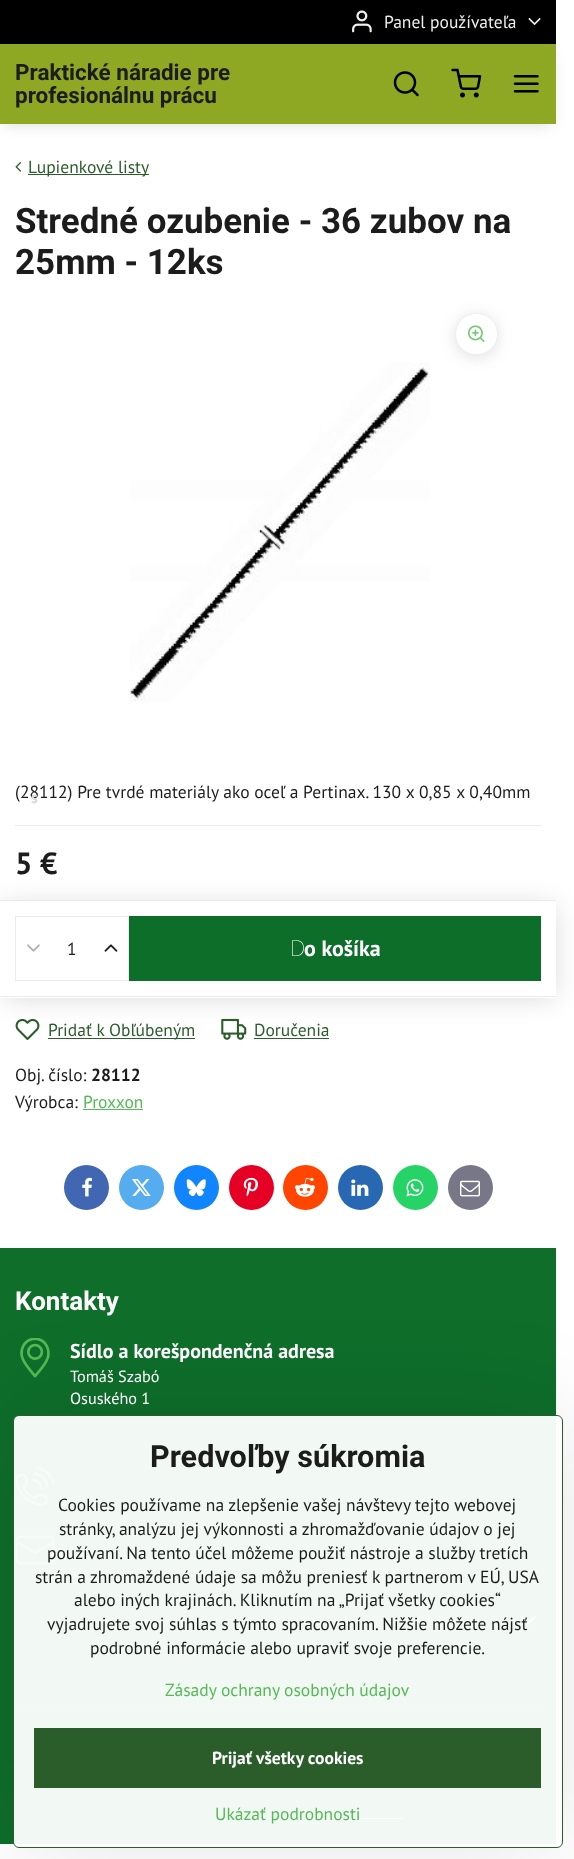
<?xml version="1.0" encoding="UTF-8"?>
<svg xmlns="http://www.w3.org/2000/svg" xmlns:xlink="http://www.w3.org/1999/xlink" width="574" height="1859">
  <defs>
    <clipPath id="clip1"><path d="M 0 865 h 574 v 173 h -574 z m 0 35 h 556 v 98 h -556 z" clip-rule="evenodd" /></clipPath>
    <clipPath id="clip2"><path d="M 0 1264 h 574 v 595 h -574 z m 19 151 h 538 c 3.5 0 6 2.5 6 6 v 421 c 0 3.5 -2.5 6 -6 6 h -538 c -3.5 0 -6 -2.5 -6 -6 v -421 c 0 -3.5 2.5 -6 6 -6 z" clip-rule="evenodd" /></clipPath>
  </defs>
  <rect width="100%" height="100%" fill="#ffffff" />
  <rect width="556" height="44" fill="#000000" />
  <image x="352" y="10" width="20" height="23" xlink:href="image1.png" />
  <image x="528" y="18" width="13" height="7" xlink:href="image2.png" />
  <rect x="5" y="54" width="546" height="70" fill="#000014" fill-opacity="0.15" filter="blur(7.5px)" />
  <rect y="44" width="556" height="80" fill="#8ea823" />
  <image x="393" y="71" width="26" height="26" xlink:href="image3.png" />
  <image x="451" y="68" width="31" height="30" xlink:href="image4.png" />
  <image x="513" y="75" width="26" height="18" xlink:href="image5.png" />
  <image x="15" y="162" width="7" height="10" xlink:href="image6.png" />
  <rect x="28" y="174" width="121" height="1" fill="#2a5d2a" />
  <rect x="15" y="825" width="526" height="1" fill="#ebebeb" />
  <image x="15" y="1018" width="25" height="22" xlink:href="image9.png" />
  <image x="221" y="1018" width="26" height="22" xlink:href="image10.png" />
  <g clip-path="url(#clip1)">
    <rect x="3" y="905" width="551" height="93" fill="#000014" fill-opacity="0.15" filter="blur(13px)" />
  </g>
  <rect y="900" width="556" height="1" fill="#ebebeb" />
  <rect y="996" width="556" height="1" fill="#ebebeb" />
  <rect x="15.5" y="916.5" width="113" height="64" fill="none" stroke="#ebebeb" />
  <image x="27" y="944" width="13" height="8" xlink:href="image7.png" />
  <image x="104" y="944" width="14" height="8" xlink:href="image8.png" />
  <rect x="129" y="916" width="412" height="65" fill="#0d6e2a" />
  <rect x="48" y="1038" width="147" height="1" fill="#2a5d2a" />
  <rect x="254" y="1038" width="75" height="1" fill="#2a5d2a" />
  <rect x="83" y="1109" width="60" height="1" fill="#54ba54" />
  <rect x="455" y="315" width="43" height="43" rx="21.5" fill="#333343" fill-opacity="0.15" filter="blur(7.5px)" />
  <rect x="455.5" y="313.5" width="42" height="41" rx="20.5" fill="#ffffff" stroke="#efefef" />
  <image x="467" y="325" width="18" height="17" xlink:href="image11.png" />
  <image x="130" y="362" width="300" height="340" xlink:href="image12.png" />
  <circle cx="86.5" cy="1187.5" r="22.5" fill="#4267b2" />
  <image x="82" y="1177" width="10" height="20" xlink:href="image13.png" />
  <circle cx="141.5" cy="1187.5" r="22.5" fill="#55acee" />
  <image x="131" y="1179" width="20" height="17" xlink:href="image14.png" />
  <circle cx="196.5" cy="1187.5" r="22.5" fill="#1185fe" />
  <image x="186" y="1179" width="20" height="17" xlink:href="image15.png" />
  <circle cx="251.5" cy="1187.5" r="22.5" fill="#e60023" />
  <image x="243" y="1177" width="15" height="20" xlink:href="image16.png" />
  <circle cx="305.5" cy="1187.5" r="22.5" fill="#ff4500" />
  <image x="295" y="1177" width="20" height="20" xlink:href="image17.png" />
  <circle cx="360.5" cy="1187.5" r="22.5" fill="#2867b2" />
  <image x="351" y="1179" width="18" height="17" xlink:href="image18.png" />
  <circle cx="415.5" cy="1187.5" r="22.5" fill="#25d366" />
  <image x="406" y="1179" width="18" height="18" xlink:href="image19.png" />
  <circle cx="470.5" cy="1187.5" r="22.5" fill="#777788" />
  <image x="460" y="1180" width="20" height="17" xlink:href="image20.png" />
  <rect y="1248" width="556" height="596" fill="#0e6e2a" />
  <image x="20" y="1338" width="30" height="40" xlink:href="image21.png" />
  <image x="15" y="1466" width="40" height="40" xlink:href="image22.png" />
  <image x="15" y="1535" width="40" height="30" xlink:href="image23.png" />
  <image x="520" y="1615" width="16" height="10" xlink:href="image24.png" />
  <rect x="15" y="1709" width="526" height="1" fill="#32844a" />
  <rect x="309" y="1818" width="95" height="1" fill="#ffffff" />
  <g clip-path="url(#clip2)">
    <rect x="13" y="1415" width="550" height="433" rx="6" fill="#000000" fill-opacity="0.1" filter="blur(50px)" />
  </g>
  <rect x="13.5" y="1415.5" width="549" height="432" rx="5.5" fill="#ffffff" fill-opacity="0.95" stroke="#2a5d2a" />
  <rect x="34" y="1728" width="507" height="60" fill="#2a5d2a" />
  <text x="384" y="28" style="font-family: PT Sans; font-size: 17.5px; fill: #eeeeee">Panel používateľa</text>
  <text x="15" y="80" style="font-family: Roboto; font-size: 22.5px; font-weight: bold; fill: #1c1c1c">Praktické náradie pre</text>
  <text x="15" y="103" style="font-family: Roboto; font-size: 22.5px; font-weight: bold; fill: #1c1c1c">profesionálnu prácu</text>
  <text x="28" y="173" style="font-family: PT Sans; font-size: 17.5px; fill: #2a5d2a">Lupienkové listy</text>
  <text x="15" y="233" style="font-family: Roboto; font-size: 35px; font-weight: bold; fill: #1c1c1c">Stredné ozubenie - 36 zubov na</text>
  <text x="15" y="274" style="font-family: Roboto; font-size: 35px; font-weight: bold; fill: #1c1c1c">25mm - 12ks</text>
  <text x="15" y="798" style="font-family: PT Sans; font-size: 17.5px; fill: #1c1c1c">(28112) Pre tvrdé materiály ako oceľ a Pertinax. 130 x 0,85 x 0,40mm</text>
  <text x="31" y="803" style="font-family: PT Sans; font-size: 16.25px; font-weight: bold; fill: #d9d9d9">s</text>
  <text x="15" y="874" style="font-family: PT Sans; font-size: 30.6px; font-weight: bold; fill: #1c1c1c">5 €</text>
  <text x="67" y="955" style="font-family: PT Sans; font-size: 17.5px; fill: #1c1c1c">1</text>
  <text x="290" y="956" style="font-family: Noto Sans; font-size: 22px; font-weight: 100; fill: #ffffff">D</text>
  <text x="304" y="956" style="font-family: PT Sans; font-size: 22px; font-weight: bold; fill: #ffffff">o košíka</text>
  <text x="48" y="1036" style="font-family: PT Sans; font-size: 17.5px; fill: #2a5d2a">Pridať k Obľúbeným</text>
  <text x="254" y="1036" style="font-family: PT Sans; font-size: 17.5px; fill: #2a5d2a">Doručenia</text>
  <text x="15" y="1081" style="font-family: PT Sans; font-size: 17.5px; fill: #1c1c1c">Obj. číslo:</text>
  <text x="91" y="1081" style="font-family: PT Sans; font-size: 17.5px; font-weight: bold; fill: #1c1c1c">28112</text>
  <text x="15" y="1108" style="font-family: PT Sans; font-size: 17.5px; fill: #1c1c1c">Výrobca:</text>
  <text x="83" y="1108" style="font-family: PT Sans; font-size: 17.5px; fill: #54ba54">Proxxon</text>
  <text x="15" y="1310" style="font-family: Roboto; font-size: 26px; font-weight: bold; fill: #ffffff">Kontakty</text>
  <text x="70" y="1358" style="font-family: PT Sans; font-size: 20px; font-weight: bold; fill: #ffffff">Sídlo a korešpondenčná adresa</text>
  <text x="70" y="1382" style="font-family: PT Sans; font-size: 16.25px; fill: #ffffff">Tomáš Szabó</text>
  <text x="70" y="1404" style="font-family: PT Sans; font-size: 16.25px; fill: #ffffff">Osuského 1</text>
  <text x="150" y="1467" style="font-family: Roboto; font-size: 30.6px; font-weight: bold; fill: #1c1c1c">Predvoľby súkromia</text>
  <text x="58" y="1511" style="font-family: PT Sans; font-size: 17.5px; fill: #1c1c1c">Cookies používame na zlepšenie vašej návštevy tejto webovej</text>
  <text x="59" y="1535" style="font-family: PT Sans; font-size: 17.5px; fill: #1c1c1c">stránky, analýzu jej výkonnosti a zhromažďovanie údajov o jej</text>
  <text x="47" y="1559" style="font-family: PT Sans; font-size: 17.5px; fill: #1c1c1c">používaní. Na tento účel môžeme použiť nástroje a služby tretích</text>
  <text x="35" y="1583" style="font-family: PT Sans; font-size: 17.5px; fill: #1c1c1c">strán a zhromaždené údaje sa môžu preniesť k partnerom v EÚ, USA</text>
  <text x="74" y="1606" style="font-family: PT Sans; font-size: 17.5px; fill: #1c1c1c">alebo iných krajinách. Kliknutím na „Prijať všetky cookies“</text>
  <text x="47" y="1630" style="font-family: PT Sans; font-size: 17.5px; fill: #1c1c1c">vyjadrujete svoj súhlas s týmto spracovaním. Nižšie môžete nájsť</text>
  <text x="90" y="1654" style="font-family: PT Sans; font-size: 17.5px; fill: #1c1c1c">podrobné informácie alebo upraviť svoje preferencie.</text>
  <text x="165" y="1696" style="font-family: PT Sans; font-size: 17.5px; fill: #54ba54">Zásady ochrany osobných údajov</text>
  <text x="212" y="1764" style="font-family: PT Sans; font-size: 17.5px; font-weight: bold; fill: #ffffff">Prijať všetky cookies</text>
  <text x="215" y="1820" style="font-family: PT Sans; font-size: 17.5px; fill: #54ba54">Ukázať podrobnosti</text>
</svg>
